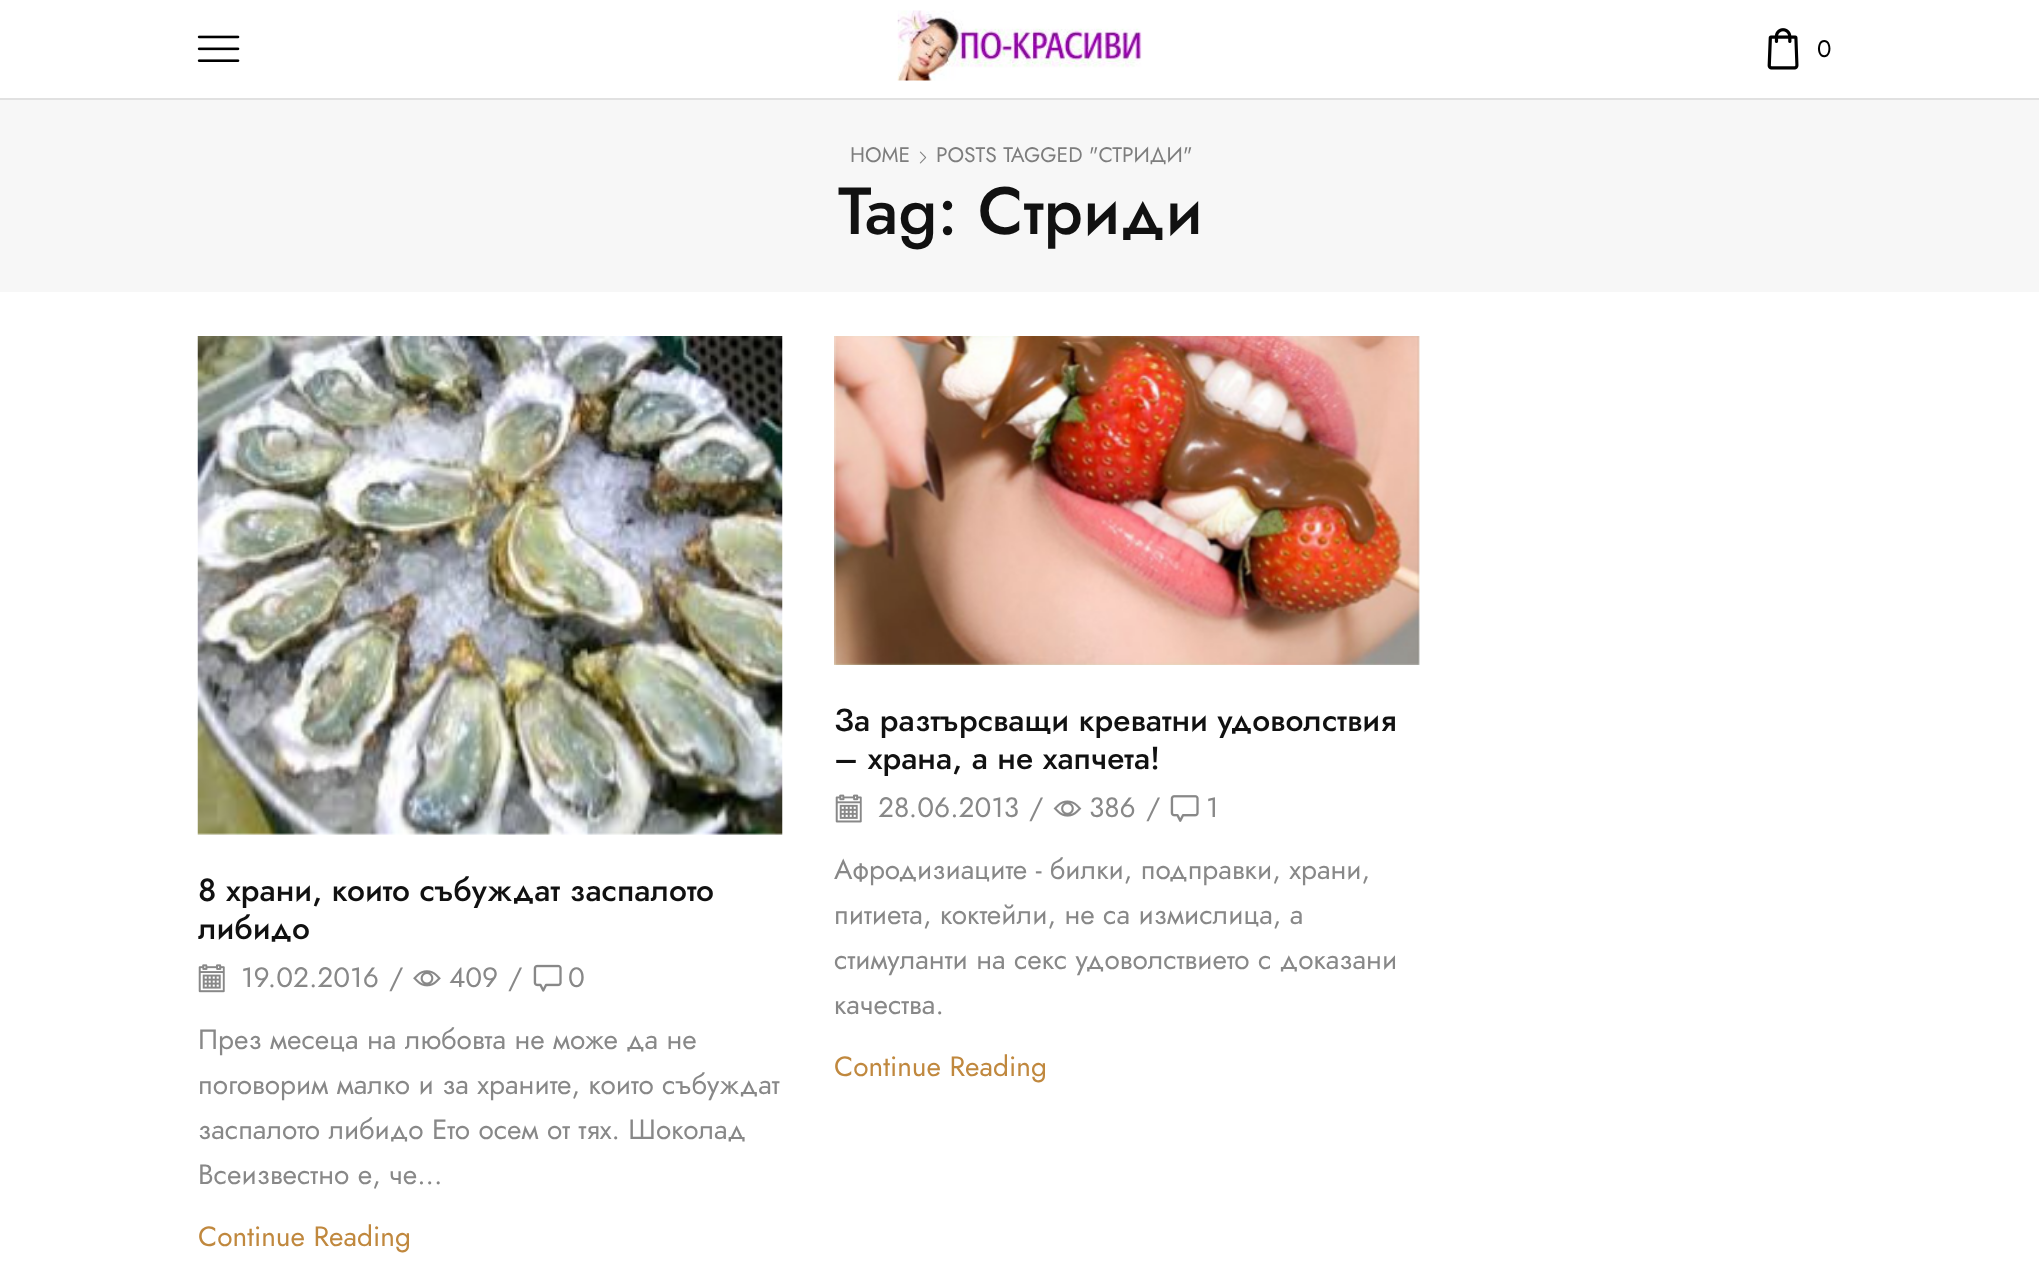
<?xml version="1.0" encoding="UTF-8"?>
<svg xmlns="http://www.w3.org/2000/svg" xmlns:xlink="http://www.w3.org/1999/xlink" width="2039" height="1268">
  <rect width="100%" height="100%" fill="#ffffff" />
  <rect y="98" width="2039" height="2" fill="#e1e1e1" />
  <image x="197" y="35" width="43" height="27" xlink:href="image1.png" />
  <image x="897" y="10" width="245" height="71" xlink:href="image2.png" />
  <image x="1767" y="28" width="32" height="42" xlink:href="image3.png" />
  <rect y="100" width="2039" height="192" fill="#f7f7f7" />
  <image x="919" y="151" width="8" height="13" xlink:href="image4.png" />
  <image x="197" y="336" width="586" height="499" xlink:href="image5.png" />
  <image x="198" y="964" width="27" height="29" xlink:href="image6.png" />
  <image x="413" y="970" width="28" height="17" xlink:href="image7.png" />
  <image x="533" y="964" width="29" height="28" xlink:href="image8.png" />
  <image x="834" y="336" width="586" height="329" xlink:href="image9.png" />
  <image x="835" y="794" width="27" height="29" xlink:href="image10.png" />
  <image x="1053" y="800" width="29" height="17" xlink:href="image11.png" />
  <image x="1170" y="795" width="29" height="27" xlink:href="image12.png" />
  <text x="1817" y="57" style="font-family: Jost; font-size: 24px; fill: #000000">0</text>
  <text x="850" y="162" style="font-family: Jost; font-size: 21px; fill: #7d7d7d">HOME</text>
  <text x="936" y="162" style="font-family: Jost; font-size: 21px; fill: #7d7d7d">POSTS TAGGED "СТРИДИ"</text>
  <text x="838" y="234" style="font-family: Jost; font-size: 66.5px; font-weight: 500; fill: #111111">Tag: Стриди</text>
  <text x="198" y="901" style="font-family: Jost; font-size: 31.8px; font-weight: 500; fill: #111111">8 храни, които събуждат заспалото</text>
  <text x="198" y="939" style="font-family: Jost; font-size: 31.8px; font-weight: 500; fill: #111111">либидо</text>
  <text x="241" y="987" style="font-family: Jost; font-size: 28px; fill: #888888">19.02.2016</text>
  <text x="389" y="987" style="font-family: Jost; font-size: 28px; fill: #888888">/</text>
  <text x="449" y="987" style="font-family: Jost; font-size: 28px; fill: #888888">409</text>
  <text x="508" y="987" style="font-family: Jost; font-size: 28px; fill: #888888">/</text>
  <text x="568" y="987" style="font-family: Jost; font-size: 28px; fill: #888888">0</text>
  <text x="198" y="1049" style="font-family: Jost; font-size: 28px; fill: #888888">През месеца на любовта не може да не</text>
  <text x="198" y="1094" style="font-family: Jost; font-size: 28px; fill: #888888">поговорим малко и за храните, които събуждат</text>
  <text x="198" y="1139" style="font-family: Jost; font-size: 28px; fill: #888888">заспалото либидо Ето осем от тях. Шоколад</text>
  <text x="198" y="1184" style="font-family: Jost; font-size: 28px; fill: #888888">Всеизвестно е, че...</text>
  <text x="198" y="1246" style="font-family: Jost; font-size: 28px; fill: #c0883e">Continue Reading</text>
  <text x="834" y="731" style="font-family: Jost; font-size: 31.8px; font-weight: 500; fill: #111111">За разтърсващи креватни удоволствия</text>
  <text x="834" y="769" style="font-family: Jost; font-size: 31.8px; font-weight: 500; fill: #111111">– храна, а не хапчета!</text>
  <text x="878" y="817" style="font-family: Jost; font-size: 28px; fill: #888888">28.06.2013</text>
  <text x="1029" y="817" style="font-family: Jost; font-size: 28px; fill: #888888">/</text>
  <text x="1089" y="817" style="font-family: Jost; font-size: 28px; fill: #888888">386</text>
  <text x="1146" y="817" style="font-family: Jost; font-size: 28px; fill: #888888">/</text>
  <text x="1206" y="817" style="font-family: Jost; font-size: 28px; fill: #888888">1</text>
  <text x="834" y="879" style="font-family: Jost; font-size: 28px; fill: #888888">Афродизиаците - билки, подправки, храни,</text>
  <text x="834" y="924" style="font-family: Jost; font-size: 28px; fill: #888888">питиета, коктейли, не са измислица, а</text>
  <text x="834" y="969" style="font-family: Jost; font-size: 28px; fill: #888888">стимуланти на секс удоволствието с доказани</text>
  <text x="834" y="1014" style="font-family: Jost; font-size: 28px; fill: #888888">качества.</text>
  <text x="834" y="1076" style="font-family: Jost; font-size: 28px; fill: #c0883e">Continue Reading</text>
</svg>
